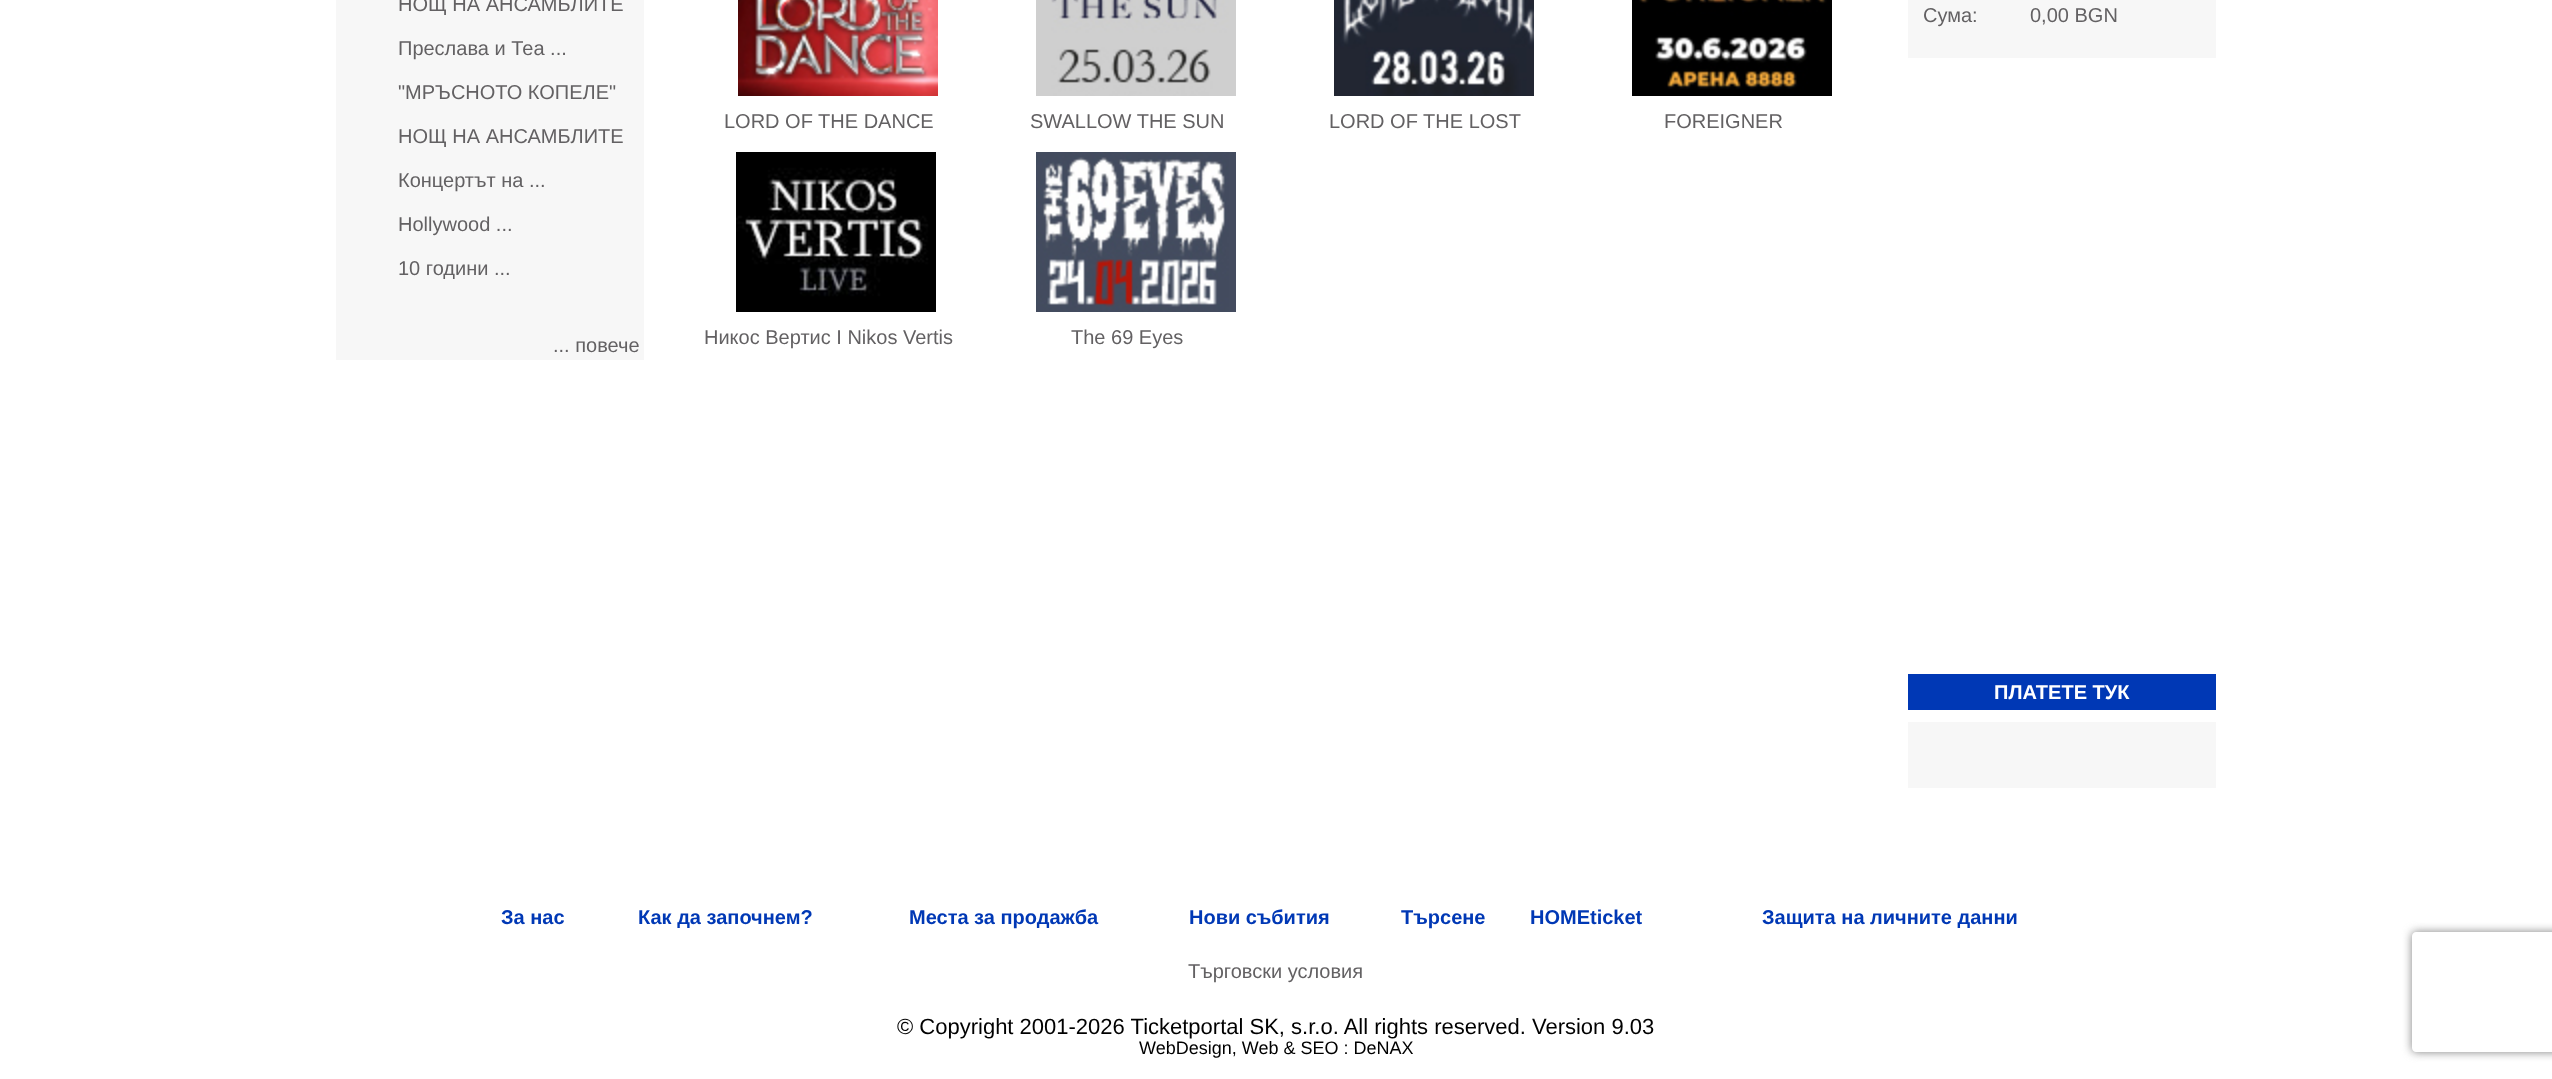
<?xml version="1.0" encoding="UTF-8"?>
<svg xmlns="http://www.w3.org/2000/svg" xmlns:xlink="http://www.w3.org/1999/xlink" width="2552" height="1079">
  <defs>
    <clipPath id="clip1"><path d="M 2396 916 h 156 v 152 h -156 z m 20 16 h 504 c 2 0 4 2 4 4 v 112 c 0 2 -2 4 -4 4 h -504 c -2 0 -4 -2 -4 -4 v -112 c 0 -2 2 -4 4 -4 z" clip-rule="evenodd" /></clipPath>
  </defs>
  <rect width="100%" height="100%" fill="#ffffff" />
  <rect x="336" width="308" height="360" fill="#f7f7f7" />
  <image x="738" y="0" width="200" height="96" xlink:href="image1.png" />
  <image x="1036" y="0" width="200" height="96" xlink:href="image2.png" />
  <image x="1334" y="0" width="200" height="96" xlink:href="image3.png" />
  <image x="1632" y="0" width="200" height="96" xlink:href="image4.png" />
  <image x="736" y="152" width="200" height="160" xlink:href="image5.png" />
  <image x="1036" y="152" width="200" height="160" xlink:href="image6.png" />
  <rect x="1908" width="308" height="58" fill="#f7f7f7" />
  <rect x="1908" y="674" width="308" height="36" fill="#0038b5" />
  <rect x="1908" y="722" width="308" height="66" fill="#f7f7f7" />
  <g clip-path="url(#clip1)">
    <rect x="2412" y="932" width="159" height="120" rx="4" fill="#808080" filter="blur(5px)" />
  </g>
  <text x="398" y="11" style="font-family: Liberation Sans; font-size: 20px; fill: #636163">НОЩ НА АНСАМБЛИТЕ</text>
  <text x="398" y="55" style="font-family: Liberation Sans; font-size: 20px; fill: #636163">Преслава и Теа ...</text>
  <text x="398" y="99" style="font-family: Liberation Sans; font-size: 20px; fill: #636163">"МРЪСНОТО КОПЕЛЕ"</text>
  <text x="398" y="143" style="font-family: Liberation Sans; font-size: 20px; fill: #636163">НОЩ НА АНСАМБЛИТЕ</text>
  <text x="398" y="187" style="font-family: Liberation Sans; font-size: 20px; fill: #636163">Концертът на ...</text>
  <text x="398" y="231" style="font-family: Liberation Sans; font-size: 20px; fill: #636163">Hollywood ...</text>
  <text x="398" y="275" style="font-family: Liberation Sans; font-size: 20px; fill: #636163">10 години ...</text>
  <text x="553" y="352" style="font-family: Liberation Sans; font-size: 20px; fill: #636163">... повече</text>
  <text x="724" y="128" style="font-family: Liberation Sans; font-size: 20px; fill: #636163">LORD OF THE DANCE</text>
  <text x="1030" y="128" style="font-family: Liberation Sans; font-size: 20px; fill: #636163">SWALLOW THE SUN</text>
  <text x="1329" y="128" style="font-family: Liberation Sans; font-size: 20px; fill: #636163">LORD OF THE LOST</text>
  <text x="1664" y="128" style="font-family: Liberation Sans; font-size: 20px; fill: #636163">FOREIGNER</text>
  <text x="704" y="344" style="font-family: Liberation Sans; font-size: 20px; fill: #636163">Никос Вертис I Nikos Vertis</text>
  <text x="1071" y="344" style="font-family: Liberation Sans; font-size: 20px; fill: #636163">The 69 Eyes</text>
  <text x="1923" y="22" style="font-family: Liberation Sans; font-size: 20px; fill: #636163">Сума:</text>
  <text x="2030" y="22" style="font-family: Liberation Sans; font-size: 20px; fill: #636163">0,00 BGN</text>
  <text x="1994" y="699" style="font-family: Liberation Sans; font-size: 20px; font-weight: bold; fill: #ffffff">ПЛАТЕТЕ ТУК</text>
  <text x="501" y="924" style="font-family: Liberation Sans; font-size: 20px; font-weight: bold; fill: #0038b5">За нас</text>
  <text x="638" y="924" style="font-family: Liberation Sans; font-size: 20px; font-weight: bold; fill: #0038b5">Как да започнем?</text>
  <text x="909" y="924" style="font-family: Liberation Sans; font-size: 20px; font-weight: bold; fill: #0038b5">Места за продажба</text>
  <text x="1189" y="924" style="font-family: Liberation Sans; font-size: 20px; font-weight: bold; fill: #0038b5">Нови събития</text>
  <text x="1401" y="924" style="font-family: Liberation Sans; font-size: 20px; font-weight: bold; fill: #0038b5">Търсене</text>
  <text x="1530" y="924" style="font-family: Liberation Sans; font-size: 20px; font-weight: bold; fill: #0038b5">HOMEticket</text>
  <text x="1762" y="924" style="font-family: Liberation Sans; font-size: 20px; font-weight: bold; fill: #0038b5">Защита на личните данни</text>
  <text x="1188" y="978" style="font-family: Liberation Sans; font-size: 20px; fill: #636163">Търговски условия</text>
  <text x="897" y="1034" style="font-family: Liberation Sans; font-size: 22px; fill: #000000">© Copyright 2001-2026 Ticketportal SK, s.r.o. All rights reserved. Version 9.03</text>
  <text x="1139" y="1054" style="font-family: Liberation Sans; font-size: 18px; fill: #000000">WebDesign, Web &amp; SEO : DeNAX</text>
</svg>
